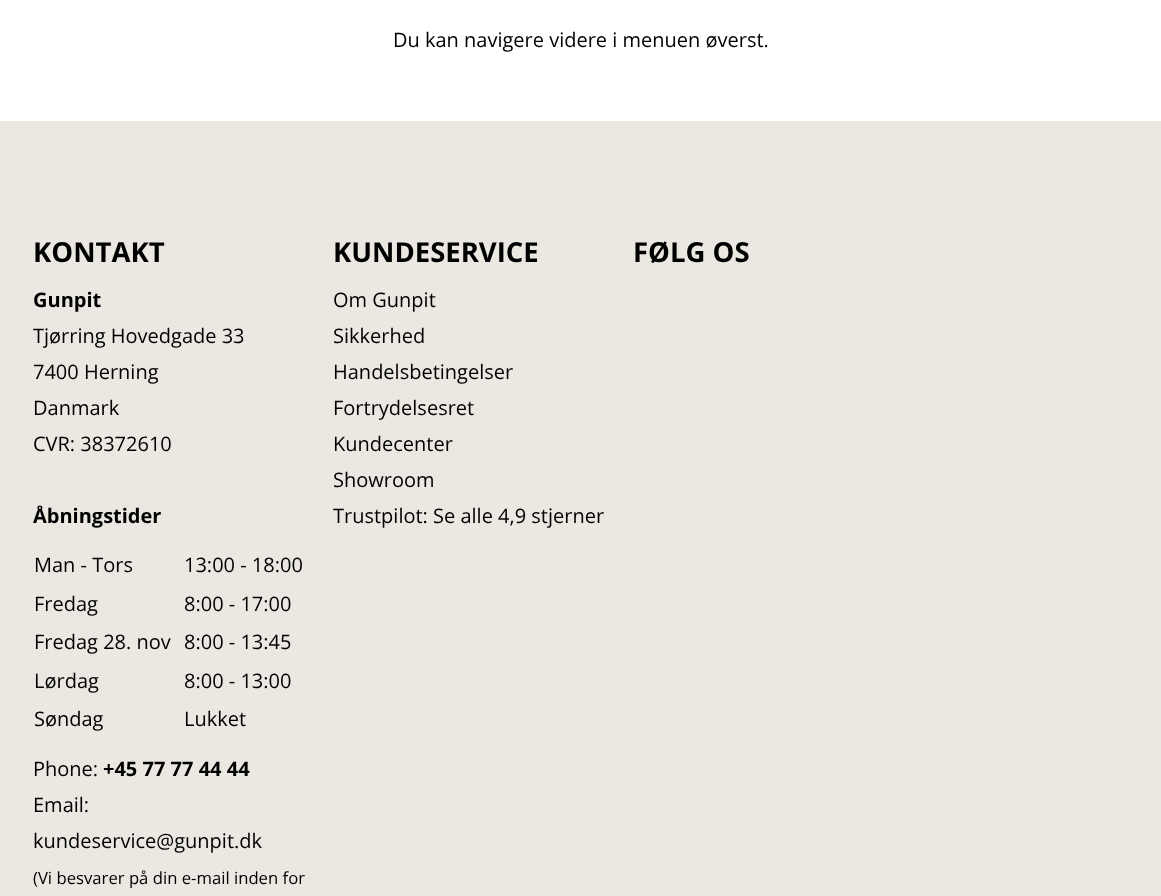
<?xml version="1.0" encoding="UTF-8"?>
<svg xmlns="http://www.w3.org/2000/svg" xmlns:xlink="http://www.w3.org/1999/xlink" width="1161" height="896">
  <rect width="100%" height="100%" fill="#ffffff" />
  <rect y="121" width="1161" height="775" fill="#ebe8e2" />
  <text x="393" y="47" style="font-family: Open Sans; font-size: 20px; fill: #000000">Du kan navigere videre i menuen øverst.</text>
  <text x="33" y="262" style="font-family: Open Sans; font-size: 27.5px; font-weight: bold; fill: #000000">KONTAKT</text>
  <text x="33" y="307" style="font-family: Open Sans; font-size: 20px; font-weight: bold; fill: #000000">Gunpit</text>
  <text x="33" y="343" style="font-family: Open Sans; font-size: 20px; fill: #000000">Tjørring Hovedgade 33</text>
  <text x="33" y="379" style="font-family: Open Sans; font-size: 20px; fill: #000000">7400 Herning</text>
  <text x="33" y="415" style="font-family: Open Sans; font-size: 20px; fill: #000000">Danmark</text>
  <text x="33" y="451" style="font-family: Open Sans; font-size: 20px; fill: #000000">CVR: 38372610</text>
  <text x="33" y="523" style="font-family: Open Sans; font-size: 20px; font-weight: bold; fill: #000000">Åbningstider</text>
  <text x="34" y="572" style="font-family: Open Sans; font-size: 20px; fill: #000000">Man - Tors</text>
  <text x="184" y="572" style="font-family: Open Sans; font-size: 20px; fill: #000000">13:00 - 18:00</text>
  <text x="34" y="611" style="font-family: Open Sans; font-size: 20px; fill: #000000">Fredag</text>
  <text x="184" y="611" style="font-family: Open Sans; font-size: 20px; fill: #000000">8:00 - 17:00</text>
  <text x="34" y="649" style="font-family: Open Sans; font-size: 20px; fill: #000000">Fredag 28. nov</text>
  <text x="184" y="649" style="font-family: Open Sans; font-size: 20px; fill: #000000">8:00 - 13:45</text>
  <text x="34" y="688" style="font-family: Open Sans; font-size: 20px; fill: #000000">Lørdag</text>
  <text x="184" y="688" style="font-family: Open Sans; font-size: 20px; fill: #000000">8:00 - 13:00</text>
  <text x="34" y="726" style="font-family: Open Sans; font-size: 20px; fill: #000000">Søndag</text>
  <text x="184" y="726" style="font-family: Open Sans; font-size: 20px; fill: #000000">Lukket</text>
  <text x="33" y="776" style="font-family: Open Sans; font-size: 20px; fill: #000000">Phone:</text>
  <text x="103" y="776" style="font-family: Open Sans; font-size: 20px; font-weight: bold; fill: #000000">+45 77 77 44 44</text>
  <text x="33" y="812" style="font-family: Open Sans; font-size: 20px; fill: #000000">Email:</text>
  <text x="33" y="848" style="font-family: Open Sans; font-size: 20px; fill: #000000">kundeservice@gunpit.dk</text>
  <text x="33" y="884" style="font-family: Open Sans; font-size: 16.7px; fill: #000000">(Vi besvarer på din e-mail inden for</text>
  <text x="333" y="262" style="font-family: Open Sans; font-size: 27.5px; font-weight: bold; fill: #000000">KUNDESERVICE</text>
  <text x="333" y="307" style="font-family: Open Sans; font-size: 20px; fill: #000000">Om Gunpit</text>
  <text x="333" y="343" style="font-family: Open Sans; font-size: 20px; fill: #000000">Sikkerhed</text>
  <text x="333" y="379" style="font-family: Open Sans; font-size: 20px; fill: #000000">Handelsbetingelser</text>
  <text x="333" y="415" style="font-family: Open Sans; font-size: 20px; fill: #000000">Fortrydelsesret</text>
  <text x="333" y="451" style="font-family: Open Sans; font-size: 20px; fill: #000000">Kundecenter</text>
  <text x="333" y="487" style="font-family: Open Sans; font-size: 20px; fill: #000000">Showroom</text>
  <text x="333" y="523" style="font-family: Open Sans; font-size: 20px; fill: #000000">Trustpilot: Se alle 4,9 stjerner</text>
  <text x="633" y="262" style="font-family: Open Sans; font-size: 27.5px; font-weight: bold; fill: #000000">FØLG OS</text>
</svg>
